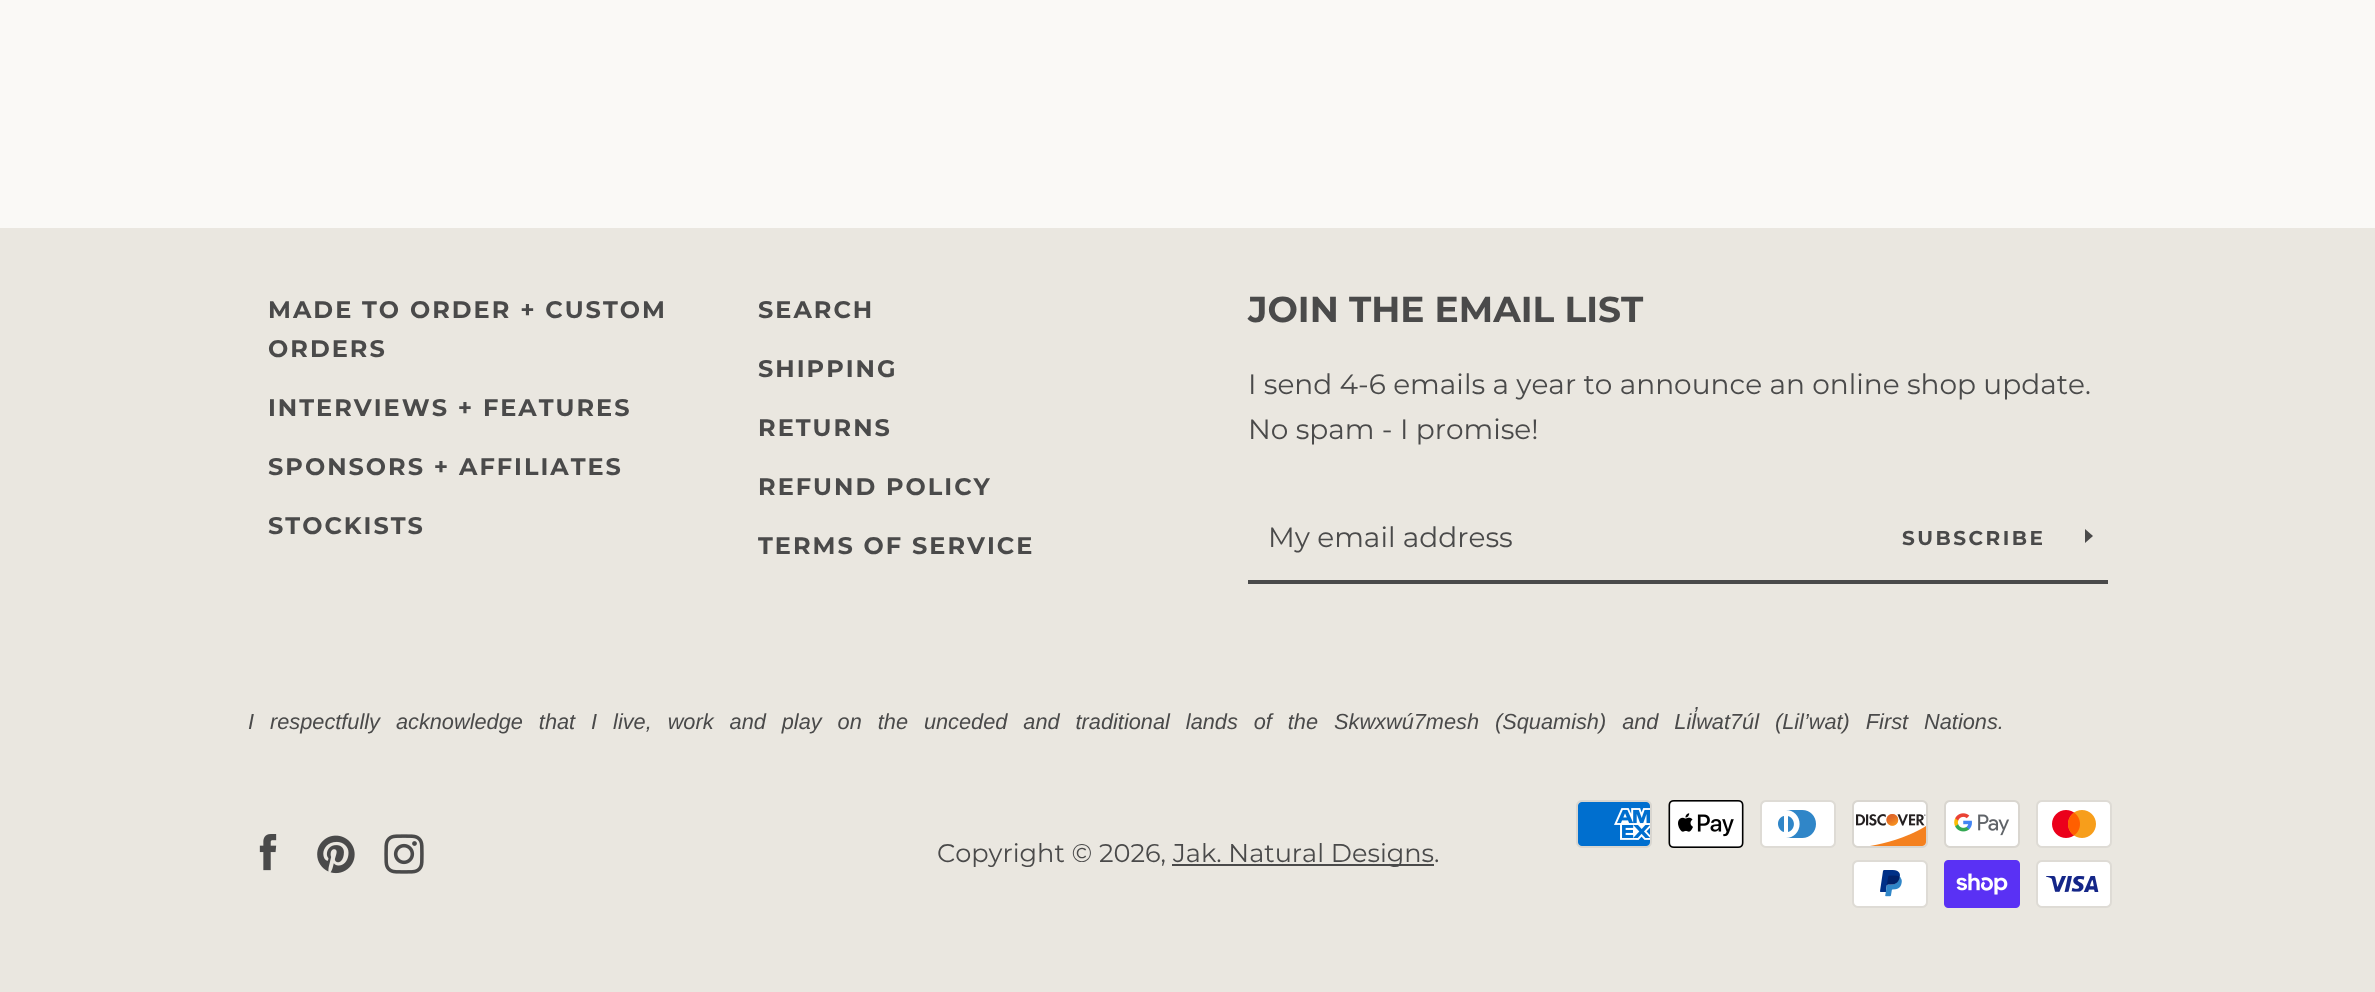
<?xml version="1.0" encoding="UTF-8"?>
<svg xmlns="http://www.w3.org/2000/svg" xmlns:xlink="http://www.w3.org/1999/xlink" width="2375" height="992">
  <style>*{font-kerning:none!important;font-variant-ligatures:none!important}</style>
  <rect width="100%" height="100%" fill="#eae7e0" />
  <rect width="2375" height="228" fill="#faf9f6" />
  <rect x="1248" y="580" width="860" height="4" fill="#4a4a4a" />
  <path d="M 2093 536 l -8 7 v -14 z" fill="#4a4a4a" />
  <image x="259" y="834" width="18" height="37" xlink:href="image1.png" />
  <image x="317" y="835" width="38" height="39" xlink:href="image2.png" />
  <image x="384" y="834" width="40" height="40" xlink:href="image3.png" />
  <rect x="1172" y="864" width="262" height="2" fill="#4a4a4a" />
  <image x="1576" y="800" width="76" height="48" xlink:href="image4.png" />
  <image x="1668" y="800" width="76" height="48" xlink:href="image5.png" />
  <image x="1760" y="800" width="76" height="48" xlink:href="image6.png" />
  <image x="1852" y="800" width="76" height="48" xlink:href="image7.png" />
  <image x="1944" y="800" width="76" height="48" xlink:href="image8.png" />
  <image x="2036" y="800" width="76" height="48" xlink:href="image9.png" />
  <image x="1852" y="860" width="76" height="48" xlink:href="image10.png" />
  <image x="1944" y="860" width="76" height="48" xlink:href="image11.png" />
  <image x="2036" y="860" width="76" height="48" xlink:href="image12.png" />
  <text x="268" y="318" style="font-family: Montserrat; font-size: 24px; font-weight: bold; letter-spacing: 2px; fill: #4a4a4a">MADE TO ORDER + CUSTOM</text>
  <text x="268" y="357" style="font-family: Montserrat; font-size: 24px; font-weight: bold; letter-spacing: 2px; fill: #4a4a4a">ORDERS</text>
  <text x="268" y="416" style="font-family: Montserrat; font-size: 24px; font-weight: bold; letter-spacing: 2px; fill: #4a4a4a">INTERVIEWS + FEATURES</text>
  <text x="268" y="475" style="font-family: Montserrat; font-size: 24px; font-weight: bold; letter-spacing: 2px; fill: #4a4a4a">SPONSORS + AFFILIATES</text>
  <text x="268" y="534" style="font-family: Montserrat; font-size: 24px; font-weight: bold; letter-spacing: 2px; fill: #4a4a4a">STOCKISTS</text>
  <text x="758" y="318" style="font-family: Montserrat; font-size: 24px; font-weight: bold; letter-spacing: 2px; fill: #4a4a4a">SEARCH</text>
  <text x="758" y="377" style="font-family: Montserrat; font-size: 24px; font-weight: bold; letter-spacing: 2px; fill: #4a4a4a">SHIPPING</text>
  <text x="758" y="436" style="font-family: Montserrat; font-size: 24px; font-weight: bold; letter-spacing: 2px; fill: #4a4a4a">RETURNS</text>
  <text x="758" y="495" style="font-family: Montserrat; font-size: 24px; font-weight: bold; letter-spacing: 2px; fill: #4a4a4a">REFUND POLICY</text>
  <text x="758" y="554" style="font-family: Montserrat; font-size: 24px; font-weight: bold; letter-spacing: 2px; fill: #4a4a4a">TERMS OF SERVICE</text>
  <text x="1248" y="322" style="font-family: Montserrat; font-size: 36px; font-weight: bold; fill: #4a4a4a">JOIN THE EMAIL LIST</text>
  <text x="1248" y="394" style="font-family: Montserrat; font-size: 28px; fill: #4a4a4a">I send 4-6 emails a year to announce an online shop update.</text>
  <text x="1248" y="439" style="font-family: Montserrat; font-size: 28px; fill: #4a4a4a">No spam - I promise!</text>
  <text x="1268" y="547" style="font-family: Montserrat; font-size: 28px; fill: #4a4a4a">My email address</text>
  <text x="1902" y="545" style="font-family: Montserrat; font-size: 20px; font-weight: bold; letter-spacing: 2.5px; fill: #4a4a4a">SUBSCRIBE</text>
  <text x="248" y="729" word-spacing="9.9" style="font-family: Liberation Sans; font-size: 21.75px; font-style: italic; fill: #4a4a4a">I respectfully acknowledge that I live, work and play on the unceded and traditional lands of the Skwxwú7mesh (Squamish) and Lil̓wat7úl (Lil’wat) First Nations.</text>
  <text x="937" y="862" style="font-family: Montserrat; font-size: 25.6px; fill: #4a4a4a">Copyright © 2026,</text>
  <text x="1173" y="862" style="font-family: Montserrat; font-size: 25.6px; fill: #4a4a4a">Jak. Natural Designs.</text>
</svg>
